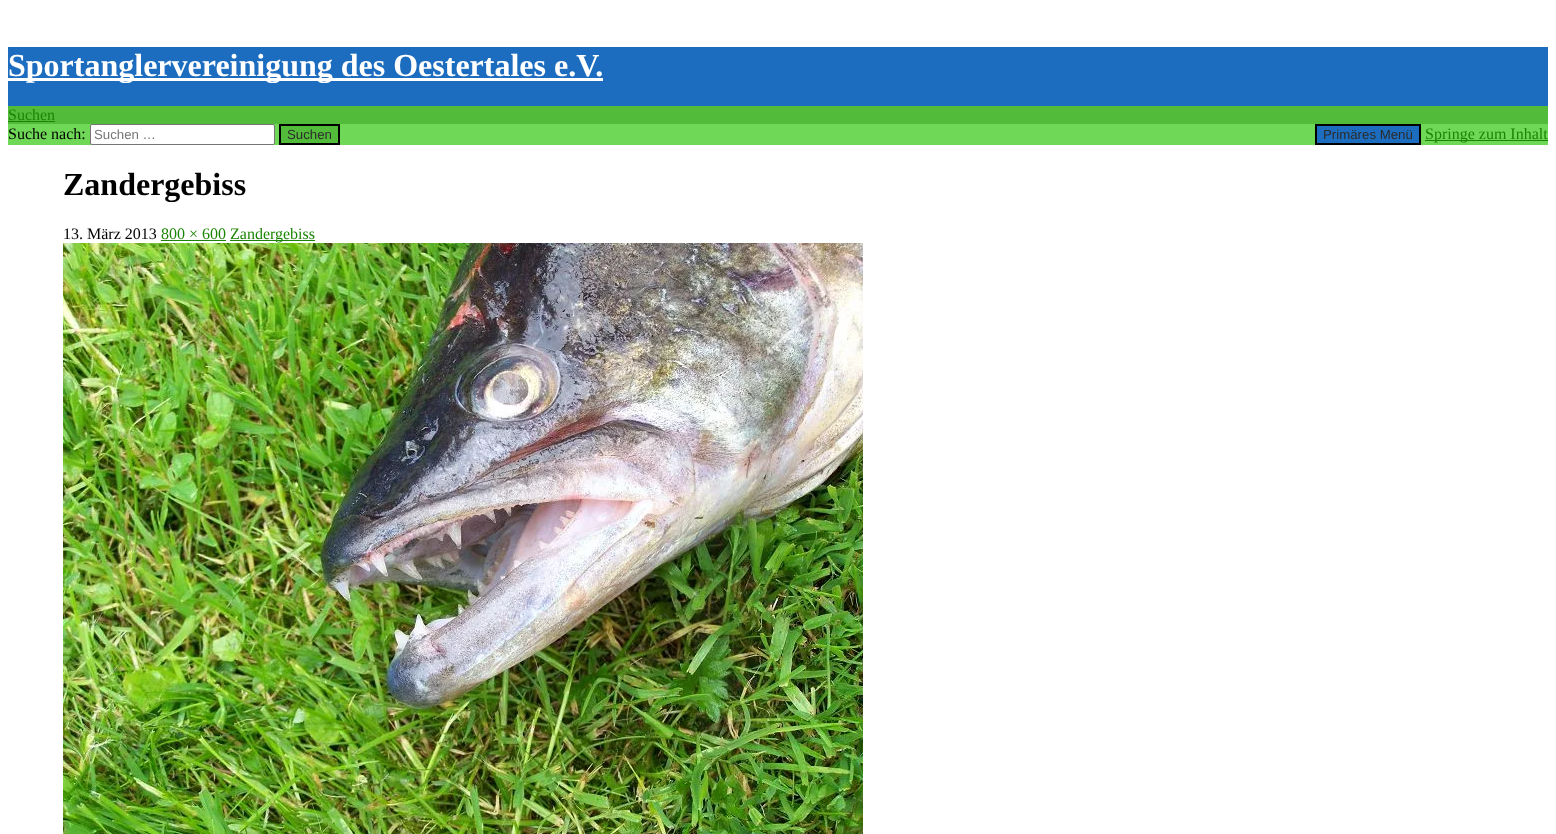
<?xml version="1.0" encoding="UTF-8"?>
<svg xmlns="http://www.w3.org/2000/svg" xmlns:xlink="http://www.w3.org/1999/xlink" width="1556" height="834">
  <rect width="100%" height="100%" fill="#ffffff" />
  <rect x="8" y="47" width="1540" height="59" fill="#1c6dbf" />
  <rect x="8" y="78" width="595" height="3" fill="#ffffff" />
  <rect x="8" y="106" width="1540" height="18" fill="#52bc3a" />
  <rect x="8" y="121" width="47" height="1" fill="#1b8503" />
  <rect x="8" y="124" width="1540" height="21" fill="#6fd957" />
  <rect x="1316" y="125" width="104" height="19" fill="#1c6dbf" stroke="#000000" stroke-width="2" />
  <rect x="1425" y="140" width="123" height="1" fill="#1b8503" />
  <rect x="90.5" y="124.5" width="184" height="20" rx="1.5" fill="#ffffff" stroke="#767676" />
  <rect x="280" y="125" width="59" height="19" fill="#52bc3a" stroke="#000000" stroke-width="2" />
  <rect x="161" y="240" width="65" height="1" fill="#1b8503" />
  <rect x="230" y="240" width="85" height="1" fill="#1b8503" />
  <image x="63" y="243" width="800" height="591" xlink:href="image1.png" />
  <text x="8" y="76" style="font-family: Liberation Serif; font-size: 32px; font-weight: bold; fill: #ffffff">Sportanglervereinigung des Oestertales e.V.</text>
  <text x="8" y="120" style="font-family: Liberation Serif; font-size: 16px; fill: #1b8503">Suchen</text>
  <text x="1323" y="139" style="font-family: Liberation Sans; font-size: 13.25px; fill: #2b2b2b">Primäres Menü</text>
  <text x="1425" y="139" style="font-family: Liberation Serif; font-size: 16px; fill: #1b8503">Springe zum Inhalt</text>
  <text x="8" y="139" style="font-family: Liberation Serif; font-size: 16px; fill: #000000">Suche nach:</text>
  <text x="94" y="139" style="font-family: Liberation Sans; font-size: 13.25px; fill: #757575">Suchen …</text>
  <text x="287" y="139" style="font-family: Liberation Sans; font-size: 13.25px; fill: #2b2b2b">Suchen</text>
  <text x="63" y="195" style="font-family: Liberation Serif; font-size: 32px; font-weight: bold; fill: #000000">Zandergebiss</text>
  <text x="63" y="239" style="font-family: Liberation Serif; font-size: 16px; fill: #000000">13. März 2013</text>
  <text x="161" y="239" style="font-family: Liberation Serif; font-size: 16px; fill: #1b8503">800 × 600</text>
  <text x="230" y="239" style="font-family: Liberation Serif; font-size: 16px; fill: #1b8503">Zandergebiss</text>
</svg>
